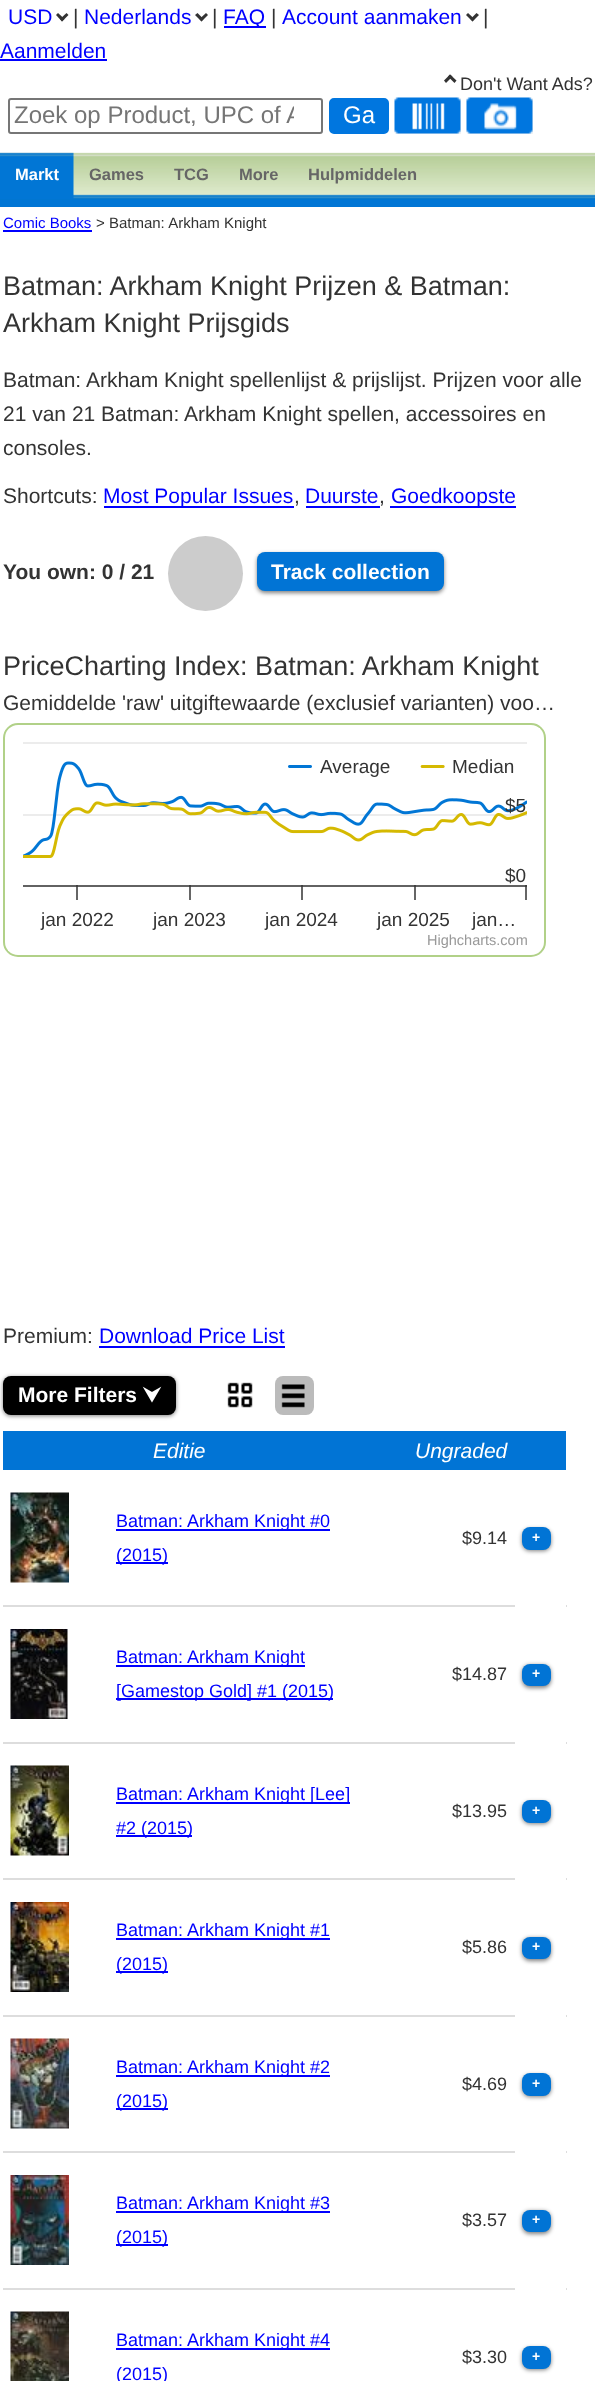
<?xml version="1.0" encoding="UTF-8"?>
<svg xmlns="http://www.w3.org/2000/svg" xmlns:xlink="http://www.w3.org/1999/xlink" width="595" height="2381">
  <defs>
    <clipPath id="clip1"><rect x="14" y="102" width="280" height="27" /></clipPath>
  </defs>
  <rect width="100%" height="100%" fill="#ffffff" />
  <path d="M 66.5 13 l 2 2 l -6.5 6.5 l -2 -2.5 z" fill="#333333" />
  <path d="M 58 13 l 6.5 6 l -2.5 2.5 l -6 -6.5 z" fill="#333333" />
  <path d="M 206 13 l 2 2 l -6.5 6.5 l -2 -2.5 z" fill="#333333" />
  <path d="M 197.5 13 l 6 6 l -2 2.5 l -6.5 -6.5 z" fill="#333333" />
  <rect x="224" y="26" width="42" height="2" fill="#0000ff" />
  <path d="M 476.5 13 l 2.5 2 l -6.5 6.5 l -2 -2.5 z" fill="#333333" />
  <path d="M 468 13 l 6.5 6 l -2 2.5 l -6.5 -6.5 z" fill="#333333" />
  <rect y="59" width="107" height="2" fill="#0000ff" />
  <path d="M 446 83 l -2 -2.5 l 6 -6 l 2.5 2 z" fill="#333333" />
  <path d="M 454.5 83 l -6.5 -6.5 l 2 -2 l 6.5 6 z" fill="#333333" />
  <rect x="9" y="99" width="313" height="34" rx="2" fill="none" stroke="#767676" stroke-width="2" />
  <rect x="330" y="99" width="58" height="34" rx="4" fill="#0076df" stroke="#0076df" stroke-width="2" />
  <rect x="395" y="98" width="66" height="36" fill="#efefef" />
  <image x="394" y="97" width="67" height="37" xlink:href="image1.png" />
  <rect x="467" y="98" width="66" height="36" fill="#efefef" />
  <image x="466" y="97" width="67" height="37" xlink:href="image2.png" />
  <image x="0" y="152" width="595" height="55" xlink:href="image3.png" />
  <image x="0" y="152" width="74" height="47" xlink:href="image4.png" />
  <rect x="3" y="230" width="89" height="2" fill="#0000ff" />
  <rect x="104" y="506" width="190" height="2" fill="#0000ff" />
  <rect x="306" y="506" width="74" height="2" fill="#0000ff" />
  <rect x="390" y="506" width="126" height="2" fill="#0000ff" />
  <circle cx="205.5" cy="573.5" r="37.5" fill="#cccccc" />
  <rect x="257" y="554" width="187" height="39" rx="8" fill="#000000" fill-opacity="0.5" filter="blur(2px)" />
  <rect x="257" y="552" width="187" height="39" rx="8" fill="#0174d5" />
  <rect x="4" y="724" width="541" height="232" rx="14" fill="none" stroke="#b1d188" stroke-width="2" />
  <image x="8" y="728" width="532" height="223" xlink:href="image5.png" />
  <rect x="99" y="1346" width="186" height="2" fill="#0000ff" />
  <rect x="3" y="1377" width="173" height="39" rx="8" fill="#000000" fill-opacity="0.5" filter="blur(2px)" />
  <rect x="3" y="1376" width="173" height="39" rx="8" fill="#000000" />
  <image x="227" y="1382" width="26" height="26" xlink:href="image6.png" />
  <rect x="275" y="1376" width="39" height="39" rx="8" fill="#bbbbbb" />
  <image x="281" y="1384" width="24" height="24" xlink:href="image7.png" />
  <rect x="3" y="1431" width="563" height="39" fill="#0174d5" />
  <rect x="3" y="1605" width="564" height="2" fill="#dddddd" />
  <image x="10" y="1492" width="59" height="91" xlink:href="image8.png" />
  <rect x="116" y="1529" width="214" height="2" fill="#0000ff" />
  <rect x="116" y="1562" width="52" height="2" fill="#0000ff" />
  <rect x="515" y="1605" width="51" height="2" fill="#ffffff" />
  <rect x="522" y="1529" width="29" height="22" rx="8" fill="#000000" fill-opacity="0.5" filter="blur(2px)" />
  <rect x="522" y="1527" width="29" height="23" rx="8" fill="#0174d5" />
  <rect x="3" y="1742" width="564" height="2" fill="#dddddd" />
  <image x="10" y="1629" width="58" height="90" xlink:href="image9.png" />
  <rect x="116" y="1665" width="189" height="2" fill="#0000ff" />
  <rect x="116" y="1698" width="217" height="2" fill="#0000ff" />
  <rect x="3" y="1878" width="564" height="2" fill="#dddddd" />
  <rect x="515" y="1742" width="51" height="138" fill="#ffffff" />
  <rect x="522" y="1665" width="29" height="23" rx="8" fill="#000000" fill-opacity="0.5" filter="blur(2px)" />
  <rect x="522" y="1664" width="29" height="22" rx="8" fill="#0174d5" />
  <image x="10" y="1765" width="59" height="91" xlink:href="image10.png" />
  <rect x="116" y="1802" width="234" height="2" fill="#0000ff" />
  <rect x="116" y="1835" width="76" height="2" fill="#0000ff" />
  <rect x="522" y="1802" width="29" height="22" rx="8" fill="#000000" fill-opacity="0.5" filter="blur(2px)" />
  <rect x="522" y="1800" width="29" height="23" rx="8" fill="#0174d5" />
  <rect x="3" y="2015" width="564" height="2" fill="#dddddd" />
  <image x="10" y="1902" width="59" height="90" xlink:href="image11.png" />
  <rect x="116" y="1938" width="214" height="2" fill="#0000ff" />
  <rect x="116" y="1971" width="52" height="2" fill="#0000ff" />
  <rect x="3" y="2151" width="564" height="2" fill="#dddddd" />
  <rect x="515" y="2015" width="51" height="138" fill="#ffffff" />
  <rect x="522" y="1938" width="29" height="23" rx="8" fill="#000000" fill-opacity="0.5" filter="blur(2px)" />
  <rect x="522" y="1937" width="29" height="22" rx="8" fill="#0174d5" />
  <image x="10" y="2038" width="59" height="91" xlink:href="image12.png" />
  <rect x="116" y="2075" width="214" height="2" fill="#0000ff" />
  <rect x="116" y="2108" width="52" height="2" fill="#0000ff" />
  <rect x="522" y="2075" width="29" height="22" rx="8" fill="#000000" fill-opacity="0.5" filter="blur(2px)" />
  <rect x="522" y="2073" width="29" height="23" rx="8" fill="#0174d5" />
  <rect x="3" y="2288" width="564" height="2" fill="#dddddd" />
  <image x="10" y="2175" width="59" height="90" xlink:href="image13.png" />
  <rect x="116" y="2211" width="214" height="2" fill="#0000ff" />
  <rect x="116" y="2244" width="52" height="2" fill="#0000ff" />
  <rect x="515" y="2288" width="51" height="2" fill="#ffffff" />
  <rect x="522" y="2211" width="29" height="23" rx="8" fill="#000000" fill-opacity="0.5" filter="blur(2px)" />
  <rect x="522" y="2210" width="29" height="22" rx="8" fill="#0174d5" />
  <image x="10" y="2311" width="59" height="70" xlink:href="image14.png" />
  <rect x="116" y="2348" width="214" height="2" fill="#0000ff" />
  <rect x="522" y="2348" width="29" height="22" rx="8" fill="#000000" fill-opacity="0.5" filter="blur(2px)" />
  <rect x="522" y="2346" width="29" height="23" rx="8" fill="#0174d5" />
  <text x="8" y="24" style="font-family: Liberation Sans; font-size: 21px; fill: #0000ff">USD</text>
  <text x="73" y="24" style="font-family: Liberation Sans; font-size: 21px; fill: #333333">|</text>
  <text x="84" y="24" style="font-family: Liberation Sans; font-size: 21px; fill: #0000ff">Nederlands</text>
  <text x="212" y="24" style="font-family: Liberation Sans; font-size: 21px; fill: #333333">|</text>
  <text x="223" y="24" style="font-family: Liberation Sans; font-size: 21px; fill: #0000ff">FAQ</text>
  <text x="271" y="24" style="font-family: Liberation Sans; font-size: 21px; fill: #333333">|</text>
  <text x="282" y="24" style="font-family: Liberation Sans; font-size: 21px; fill: #0000ff">Account aanmaken</text>
  <text x="483" y="24" style="font-family: Liberation Sans; font-size: 21px; fill: #333333">|</text>
  <text x="0" y="58" style="font-family: Liberation Sans; font-size: 21px; fill: #0000ff">Aanmelden</text>
  <text x="460" y="90" style="font-family: Liberation Sans; font-size: 18px; fill: #333333">Don't Want Ads?</text>
  <g clip-path="url(#clip1)">
    <text x="14" y="123" style="font-family: Liberation Sans; font-size: 24px; fill: #757575">Zoek op Product, UPC of A</text>
  </g>
  <text x="343" y="123" style="font-family: Liberation Sans; font-size: 24px; fill: #ffffff">Ga</text>
  <text x="15" y="180" style="font-family: Liberation Sans; font-size: 16.5px; font-weight: bold; fill: #ffffff">Markt</text>
  <text x="89" y="180" style="font-family: Liberation Sans; font-size: 16.5px; font-weight: bold; fill: #666666">Games</text>
  <text x="174" y="180" style="font-family: Liberation Sans; font-size: 16.5px; font-weight: bold; fill: #666666">TCG</text>
  <text x="239" y="180" style="font-family: Liberation Sans; font-size: 16.5px; font-weight: bold; fill: #666666">More</text>
  <text x="308" y="180" style="font-family: Liberation Sans; font-size: 16.5px; font-weight: bold; fill: #666666">Hulpmiddelen</text>
  <text x="3" y="228" style="font-family: Liberation Sans; font-size: 15px; fill: #0000ff">Comic Books</text>
  <text x="96" y="228" style="font-family: Liberation Sans; font-size: 15px; fill: #333333">&gt; Batman: Arkham Knight</text>
  <text x="3" y="295" style="font-family: Liberation Sans; font-size: 27px; fill: #333333">Batman: Arkham Knight Prijzen &amp; Batman:</text>
  <text x="3" y="332" style="font-family: Liberation Sans; font-size: 27px; fill: #333333">Arkham Knight Prijsgids</text>
  <text x="3" y="387" style="font-family: Liberation Sans; font-size: 21px; fill: #333333">Batman: Arkham Knight spellenlijst &amp; prijslijst. Prijzen voor alle</text>
  <text x="3" y="421" style="font-family: Liberation Sans; font-size: 21px; fill: #333333">21 van 21 Batman: Arkham Knight spellen, accessoires en</text>
  <text x="3" y="455" style="font-family: Liberation Sans; font-size: 21px; fill: #333333">consoles.</text>
  <text x="3" y="503" style="font-family: Liberation Sans; font-size: 21px; fill: #333333">Shortcuts:</text>
  <text x="103" y="503" style="font-family: Liberation Sans; font-size: 21px; fill: #0000ff">Most Popular Issues</text>
  <text x="294" y="503" style="font-family: Liberation Sans; font-size: 21px; fill: #333333">,</text>
  <text x="305" y="503" style="font-family: Liberation Sans; font-size: 21px; fill: #0000ff">Duurste</text>
  <text x="379" y="503" style="font-family: Liberation Sans; font-size: 21px; fill: #333333">,</text>
  <text x="391" y="503" style="font-family: Liberation Sans; font-size: 21px; fill: #0000ff">Goedkoopste</text>
  <text x="3" y="579" style="font-family: Liberation Sans; font-size: 21px; font-weight: bold; fill: #333333">You own: 0 / 21</text>
  <text x="271" y="579" style="font-family: Liberation Sans; font-size: 21px; font-weight: bold; fill: #ffffff">Track collection</text>
  <text x="3" y="675" style="font-family: Liberation Sans; font-size: 27px; fill: #333333">PriceCharting Index: Batman: Arkham Knight</text>
  <text x="3" y="710" style="font-family: Liberation Sans; font-size: 21px; fill: #333333">Gemiddelde 'raw' uitgiftewaarde (exclusief varianten) voo…</text>
  <text x="320" y="773" style="font-family: Liberation Sans; font-size: 19px; fill: #333333">Average</text>
  <text x="452" y="773" style="font-family: Liberation Sans; font-size: 19px; fill: #333333">Median</text>
  <text x="505" y="812" style="font-family: Liberation Sans; font-size: 19px; fill: #333333">$5</text>
  <text x="505" y="882" style="font-family: Liberation Sans; font-size: 19px; fill: #333333">$0</text>
  <text x="41" y="926" style="font-family: Liberation Sans; font-size: 19px; fill: #333333">jan 2022</text>
  <text x="153" y="926" style="font-family: Liberation Sans; font-size: 19px; fill: #333333">jan 2023</text>
  <text x="265" y="926" style="font-family: Liberation Sans; font-size: 19px; fill: #333333">jan 2024</text>
  <text x="377" y="926" style="font-family: Liberation Sans; font-size: 19px; fill: #333333">jan 2025</text>
  <text x="472" y="926" style="font-family: Liberation Sans; font-size: 19px; fill: #333333">jan…</text>
  <text x="427" y="945" style="font-family: Liberation Sans; font-size: 14.5px; fill: #999999">Highcharts.com</text>
  <text x="3" y="1343" style="font-family: Liberation Sans; font-size: 21px; fill: #333333">Premium:</text>
  <text x="99" y="1343" style="font-family: Liberation Sans; font-size: 21px; fill: #0000ff">Download Price List</text>
  <text x="18" y="1402" style="font-family: Liberation Sans; font-size: 21px; font-weight: bold; fill: #ffffff">More Filters</text>
  <text x="143" y="1402" style="font-family: FreeSans; font-size: 21px; font-weight: bold; fill: #ffffff">⮟</text>
  <text x="153" y="1458" style="font-family: Liberation Sans; font-size: 21px; font-style: italic; fill: #ffffff">Editie</text>
  <text x="415" y="1458" style="font-family: Liberation Sans; font-size: 21px; font-style: italic; fill: #ffffff">Ungraded</text>
  <text x="116" y="1527" style="font-family: Liberation Sans; font-size: 18px; fill: #0000ff">Batman: Arkham Knight #0</text>
  <text x="116" y="1561" style="font-family: Liberation Sans; font-size: 18px; fill: #0000ff">(2015)</text>
  <text x="462" y="1544" style="font-family: Liberation Sans; font-size: 18px; fill: #333333">$9.14</text>
  <text x="532" y="1542" style="font-family: Liberation Sans; font-size: 14px; font-weight: bold; fill: #ffffff">+</text>
  <text x="116" y="1663" style="font-family: Liberation Sans; font-size: 18px; fill: #0000ff">Batman: Arkham Knight</text>
  <text x="116" y="1697" style="font-family: Liberation Sans; font-size: 18px; fill: #0000ff">[Gamestop Gold] #1 (2015)</text>
  <text x="452" y="1680" style="font-family: Liberation Sans; font-size: 18px; fill: #333333">$14.87</text>
  <text x="532" y="1678" style="font-family: Liberation Sans; font-size: 14px; font-weight: bold; fill: #ffffff">+</text>
  <text x="116" y="1800" style="font-family: Liberation Sans; font-size: 18px; fill: #0000ff">Batman: Arkham Knight [Lee]</text>
  <text x="116" y="1834" style="font-family: Liberation Sans; font-size: 18px; fill: #0000ff">#2 (2015)</text>
  <text x="452" y="1817" style="font-family: Liberation Sans; font-size: 18px; fill: #333333">$13.95</text>
  <text x="532" y="1815" style="font-family: Liberation Sans; font-size: 14px; font-weight: bold; fill: #ffffff">+</text>
  <text x="116" y="1936" style="font-family: Liberation Sans; font-size: 18px; fill: #0000ff">Batman: Arkham Knight #1</text>
  <text x="116" y="1970" style="font-family: Liberation Sans; font-size: 18px; fill: #0000ff">(2015)</text>
  <text x="462" y="1953" style="font-family: Liberation Sans; font-size: 18px; fill: #333333">$5.86</text>
  <text x="532" y="1951" style="font-family: Liberation Sans; font-size: 14px; font-weight: bold; fill: #ffffff">+</text>
  <text x="116" y="2073" style="font-family: Liberation Sans; font-size: 18px; fill: #0000ff">Batman: Arkham Knight #2</text>
  <text x="116" y="2107" style="font-family: Liberation Sans; font-size: 18px; fill: #0000ff">(2015)</text>
  <text x="462" y="2090" style="font-family: Liberation Sans; font-size: 18px; fill: #333333">$4.69</text>
  <text x="532" y="2088" style="font-family: Liberation Sans; font-size: 14px; font-weight: bold; fill: #ffffff">+</text>
  <text x="116" y="2209" style="font-family: Liberation Sans; font-size: 18px; fill: #0000ff">Batman: Arkham Knight #3</text>
  <text x="116" y="2243" style="font-family: Liberation Sans; font-size: 18px; fill: #0000ff">(2015)</text>
  <text x="462" y="2226" style="font-family: Liberation Sans; font-size: 18px; fill: #333333">$3.57</text>
  <text x="532" y="2224" style="font-family: Liberation Sans; font-size: 14px; font-weight: bold; fill: #ffffff">+</text>
  <text x="116" y="2346" style="font-family: Liberation Sans; font-size: 18px; fill: #0000ff">Batman: Arkham Knight #4</text>
  <text x="116" y="2380" style="font-family: Liberation Sans; font-size: 18px; fill: #0000ff">(2015)</text>
  <text x="462" y="2363" style="font-family: Liberation Sans; font-size: 18px; fill: #333333">$3.30</text>
  <text x="532" y="2361" style="font-family: Liberation Sans; font-size: 14px; font-weight: bold; fill: #ffffff">+</text>
</svg>
